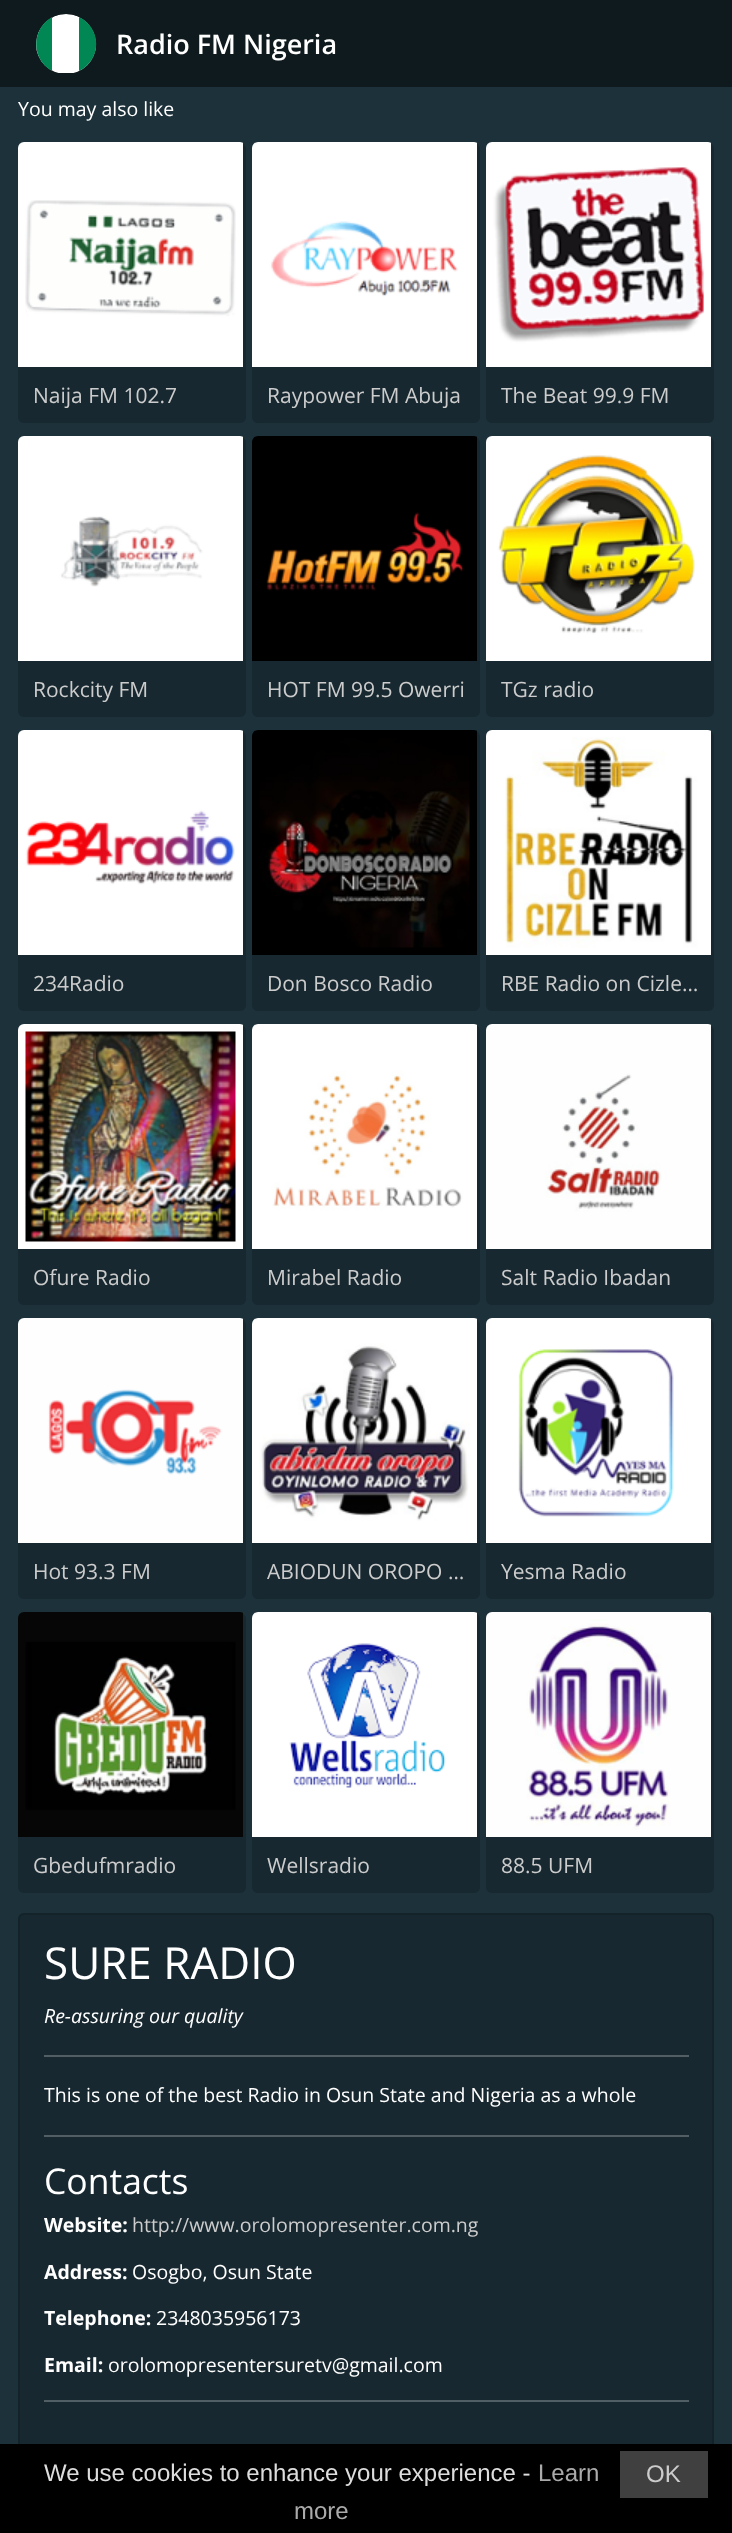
<?xml version="1.0" encoding="UTF-8"?>
<svg xmlns="http://www.w3.org/2000/svg" xmlns:xlink="http://www.w3.org/1999/xlink" width="732" height="2533">
  <defs>
    <clipPath id="clip1"><rect x="36" y="14" width="60" height="60" rx="30" /></clipPath>
  </defs>
  <rect width="100%" height="100%" fill="#1c313a" />
  <rect width="732" height="87" fill="#0f1a1e" />
  <g clip-path="url(#clip1)">
    <path d="M 66 14 c 16.5 0 30 13.5 30 30 v 29 h -60 v -29 c 0 -16.5 13.5 -30 30 -30 z" fill="#ffffff" />
  </g>
  <path d="M 79 17 c 23 11 23 43 0 54 z m -27 0 v 54 c -21 -12 -21 -42 0 -54 z" fill="#008753" fill-rule="evenodd" />
  <rect x="18" y="143" width="228" height="280" rx="6" fill="#172830" />
  <image x="18" y="142" width="225" height="225" xlink:href="image1.png" />
  <rect x="252" y="143" width="228" height="280" rx="6" fill="#172830" />
  <image x="252" y="142" width="225" height="225" xlink:href="image2.png" />
  <rect x="486" y="143" width="228" height="280" rx="6" fill="#172830" />
  <image x="486" y="142" width="225" height="225" xlink:href="image3.png" />
  <rect x="18" y="437" width="228" height="280" rx="6" fill="#172830" />
  <image x="18" y="436" width="225" height="225" xlink:href="image4.png" />
  <rect x="252" y="437" width="228" height="280" rx="6" fill="#172830" />
  <image x="252" y="436" width="225" height="225" xlink:href="image5.png" />
  <rect x="486" y="437" width="228" height="280" rx="6" fill="#172830" />
  <image x="486" y="436" width="225" height="225" xlink:href="image6.png" />
  <rect x="18" y="731" width="228" height="280" rx="6" fill="#172830" />
  <image x="18" y="730" width="225" height="225" xlink:href="image7.png" />
  <rect x="252" y="731" width="228" height="280" rx="6" fill="#172830" />
  <image x="252" y="730" width="225" height="225" xlink:href="image8.png" />
  <rect x="486" y="731" width="228" height="280" rx="6" fill="#172830" />
  <image x="486" y="730" width="225" height="225" xlink:href="image9.png" />
  <rect x="18" y="1025" width="228" height="280" rx="6" fill="#172830" />
  <image x="18" y="1024" width="225" height="225" xlink:href="image10.png" />
  <rect x="252" y="1025" width="228" height="280" rx="6" fill="#172830" />
  <image x="252" y="1024" width="225" height="225" xlink:href="image11.png" />
  <rect x="486" y="1025" width="228" height="280" rx="6" fill="#172830" />
  <image x="486" y="1024" width="225" height="225" xlink:href="image12.png" />
  <rect x="18" y="1319" width="228" height="280" rx="6" fill="#172830" />
  <image x="18" y="1318" width="225" height="225" xlink:href="image13.png" />
  <rect x="252" y="1319" width="228" height="280" rx="6" fill="#172830" />
  <image x="252" y="1318" width="225" height="225" xlink:href="image14.png" />
  <rect x="486" y="1319" width="228" height="280" rx="6" fill="#172830" />
  <image x="486" y="1318" width="225" height="225" xlink:href="image15.png" />
  <rect x="18" y="1613" width="228" height="280" rx="6" fill="#172830" />
  <image x="18" y="1612" width="225" height="225" xlink:href="image16.png" />
  <rect x="252" y="1613" width="228" height="280" rx="6" fill="#172830" />
  <image x="252" y="1612" width="225" height="225" xlink:href="image17.png" />
  <rect x="486" y="1613" width="228" height="280" rx="6" fill="#172830" />
  <image x="486" y="1612" width="225" height="225" xlink:href="image18.png" />
  <rect x="19" y="1914" width="694" height="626" rx="5" fill="#172830" stroke="#14232a" stroke-width="2" />
  <rect x="44" y="2055" width="645" height="2" fill="#515e64" />
  <rect x="44" y="2135" width="645" height="2" fill="#515e64" />
  <rect x="44" y="2400" width="645" height="2" fill="#515e64" />
  <rect y="2444" width="732" height="89" fill="#000000" />
  <rect x="620" y="2451" width="88" height="47" fill="#404040" />
  <text x="116" y="54" style="font-family: Open Sans; font-size: 27px; font-weight: 600; fill: #ffffff">Radio FM Nigeria</text>
  <text x="18" y="116" style="font-family: Open Sans; font-size: 19.5px; fill: #ffffff">You may also like</text>
  <text x="33" y="403" style="font-family: Open Sans; font-size: 21px; fill: #cccccc">Naija FM 102.7</text>
  <text x="267" y="403" style="font-family: Open Sans; font-size: 21px; fill: #cccccc">Raypower FM Abuja</text>
  <text x="501" y="403" style="font-family: Open Sans; font-size: 21px; fill: #cccccc">The Beat 99.9 FM</text>
  <text x="33" y="697" style="font-family: Open Sans; font-size: 21px; fill: #cccccc">Rockcity FM</text>
  <text x="267" y="697" style="font-family: Open Sans; font-size: 21px; fill: #cccccc">HOT FM 99.5 Owerri</text>
  <text x="501" y="697" style="font-family: Open Sans; font-size: 21px; fill: #cccccc">TGz radio</text>
  <text x="33" y="991" style="font-family: Open Sans; font-size: 21px; fill: #cccccc">234Radio</text>
  <text x="267" y="991" style="font-family: Open Sans; font-size: 21px; fill: #cccccc">Don Bosco Radio</text>
  <text x="501" y="991" style="font-family: Open Sans; font-size: 21px; fill: #cccccc">RBE Radio on Cizle…</text>
  <text x="33" y="1285" style="font-family: Open Sans; font-size: 21px; fill: #cccccc">Ofure Radio</text>
  <text x="267" y="1285" style="font-family: Open Sans; font-size: 21px; fill: #cccccc">Mirabel Radio</text>
  <text x="501" y="1285" style="font-family: Open Sans; font-size: 21px; fill: #cccccc">Salt Radio Ibadan</text>
  <text x="33" y="1579" style="font-family: Open Sans; font-size: 21px; fill: #cccccc">Hot 93.3 FM</text>
  <text x="267" y="1579" style="font-family: Open Sans; font-size: 21px; fill: #cccccc">ABIODUN OROPO …</text>
  <text x="501" y="1579" style="font-family: Open Sans; font-size: 21px; fill: #cccccc">Yesma Radio</text>
  <text x="33" y="1873" style="font-family: Open Sans; font-size: 21px; fill: #cccccc">Gbedufmradio</text>
  <text x="267" y="1873" style="font-family: Open Sans; font-size: 21px; fill: #cccccc">Wellsradio</text>
  <text x="501" y="1873" style="font-family: Open Sans; font-size: 21px; fill: #cccccc">88.5 UFM</text>
  <text x="44" y="1979" style="font-family: Open Sans; font-size: 44px; fill: #ffffff">SURE RADIO</text>
  <text x="44" y="2023" style="font-family: Open Sans; font-size: 19.5px; font-style: italic; fill: #ffffff">Re-assuring our quality</text>
  <text x="44" y="2102" style="font-family: Open Sans; font-size: 19.5px; fill: #ffffff">This is one of the best Radio in Osun State and Nigeria as a whole</text>
  <text x="44" y="2194" style="font-family: Open Sans; font-size: 35.5px; fill: #ffffff">Contacts</text>
  <text x="44" y="2232" style="font-family: Open Sans; font-size: 19.5px; font-weight: bold; fill: #ffffff">Website:</text>
  <text x="132" y="2232" style="font-family: Open Sans; font-size: 19.5px; fill: #cccccc">http://www.orolomopresenter.com.ng</text>
  <text x="44" y="2279" style="font-family: Open Sans; font-size: 19.5px; font-weight: bold; fill: #ffffff">Address:</text>
  <text x="132" y="2279" style="font-family: Open Sans; font-size: 19.5px; fill: #ffffff">Osogbo, Osun State</text>
  <text x="44" y="2325" style="font-family: Open Sans; font-size: 19.5px; font-weight: bold; fill: #ffffff">Telephone:</text>
  <text x="156" y="2325" style="font-family: Open Sans; font-size: 19.5px; fill: #ffffff">2348035956173</text>
  <text x="44" y="2372" style="font-family: Open Sans; font-size: 19.5px; font-weight: bold; fill: #ffffff">Email:</text>
  <text x="108" y="2372" style="font-family: Open Sans; font-size: 19.5px; fill: #ffffff">orolomopresentersuretv@gmail.com</text>
  <text x="44" y="2481" style="font-family: Liberation Sans; font-size: 24px; fill: #dddddd">We use cookies to enhance your experience -</text>
  <text x="538" y="2481" style="font-family: Liberation Sans; font-size: 24px; fill: #aaaaaa">Learn</text>
  <text x="646" y="2482" style="font-family: Liberation Sans; font-size: 24px; fill: #cccccc">OK</text>
  <text x="294" y="2519" style="font-family: Liberation Sans; font-size: 24px; fill: #aaaaaa">more</text>
</svg>
